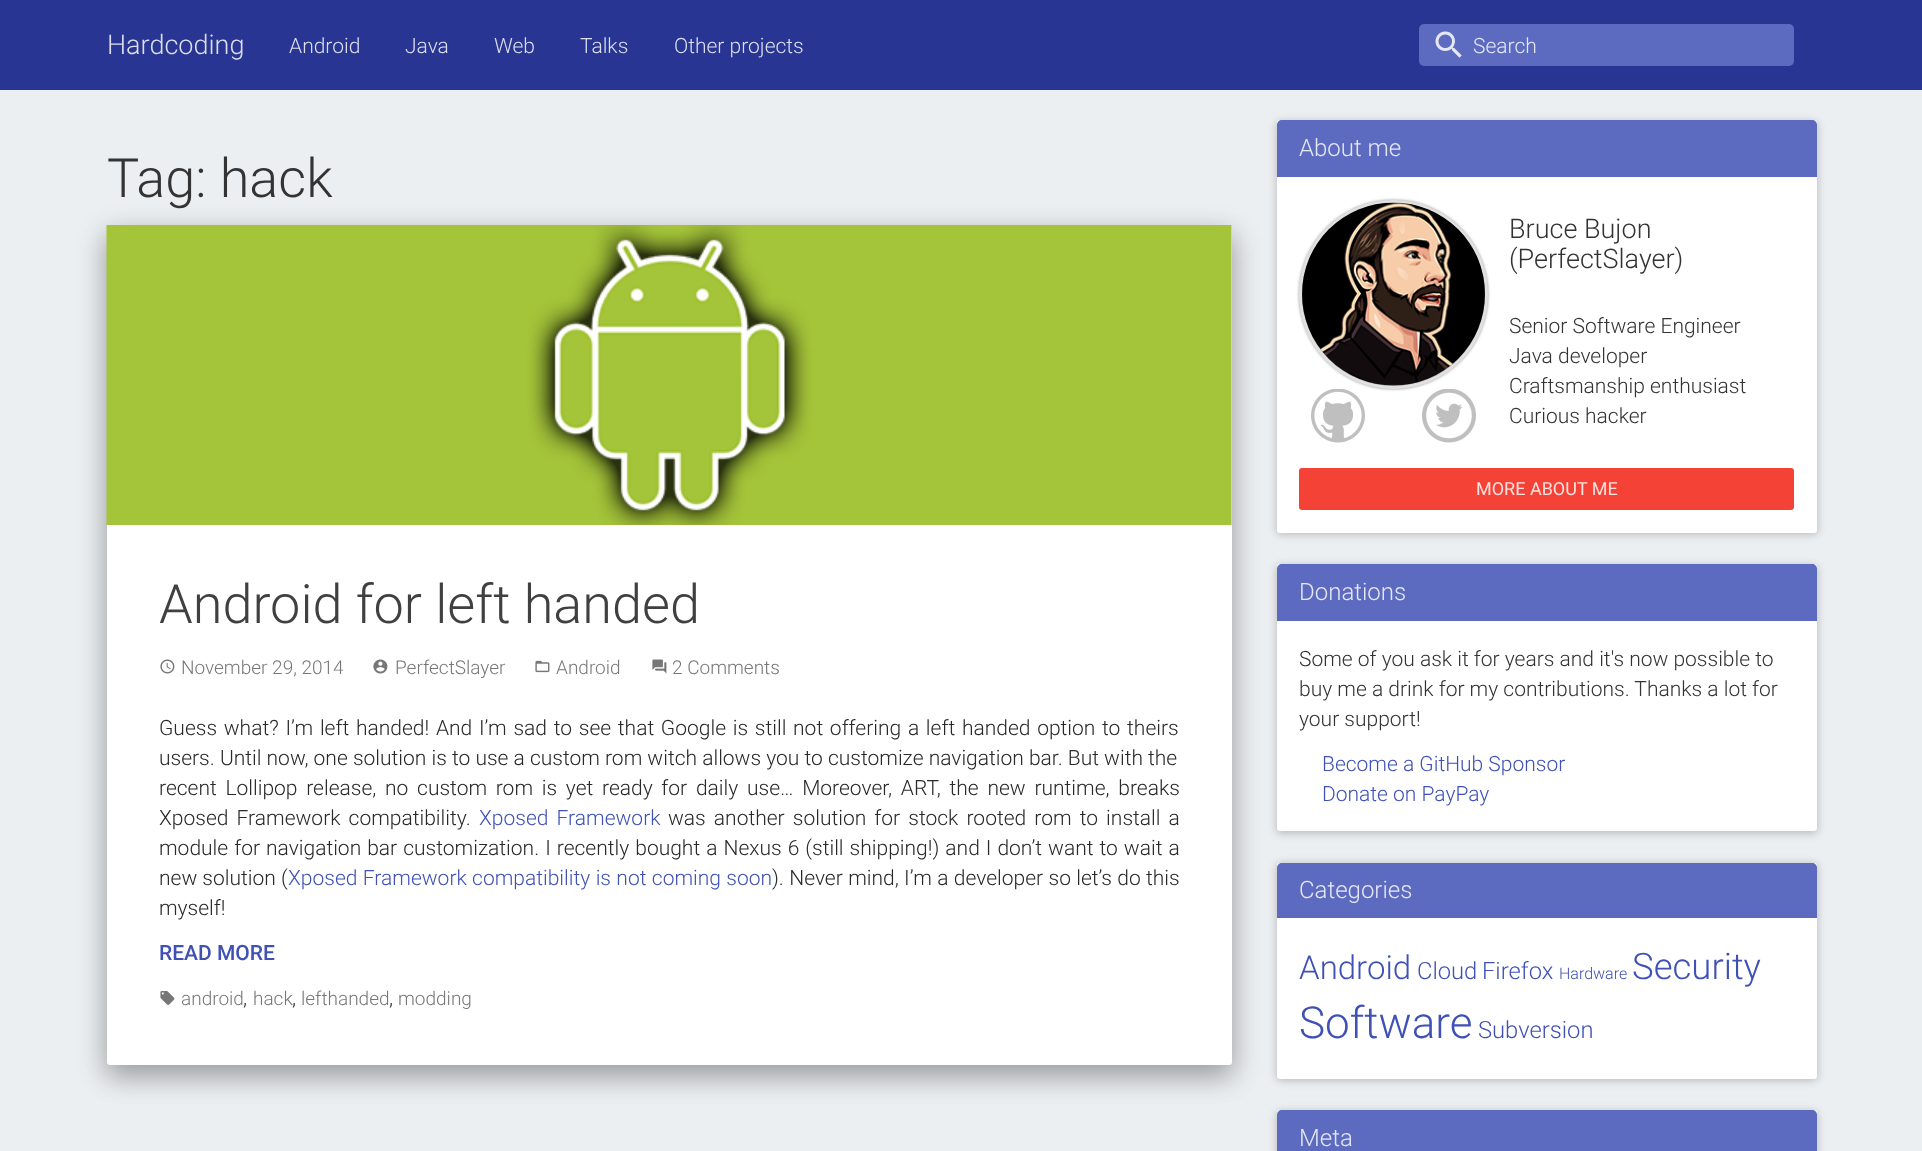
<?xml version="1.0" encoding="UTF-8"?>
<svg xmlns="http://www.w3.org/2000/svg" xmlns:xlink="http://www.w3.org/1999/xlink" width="1922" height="1151">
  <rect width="100%" height="100%" fill="#eceff1" />
  <rect width="1922" height="90" fill="#283593" />
  <rect x="1419" y="24" width="375" height="42" rx="5" fill="#5c6bc0" />
  <image x="1435" y="31" width="27" height="27" xlink:href="image1.png" />
  <rect x="107" y="234" width="1125" height="840" rx="3" fill="#000000" fill-opacity="0.19" filter="blur(15px)" />
  <rect x="107" y="237" width="1125" height="840" rx="3" fill="#000000" fill-opacity="0.2" filter="blur(13px)" />
  <rect x="107" y="225" width="1125" height="840" rx="3" fill="#ffffff" />
  <rect x="1231" y="225" width="1" height="300" fill="#f4f4f4" />
  <image x="106" y="225" width="1126" height="300" xlink:href="image2.png" />
  <image x="160" y="659" width="15" height="15" xlink:href="image3.png" />
  <image x="373" y="659" width="15" height="15" xlink:href="image4.png" />
  <image x="535" y="660" width="15" height="13" xlink:href="image5.png" />
  <image x="652" y="659" width="15" height="15" xlink:href="image6.png" />
  <image x="160" y="991" width="15" height="14" xlink:href="image7.png" />
  <rect x="1277" y="122" width="540" height="412" rx="3" fill="#000000" fill-opacity="0.12" filter="blur(4.5px)" />
  <rect x="1277" y="122" width="540" height="412" rx="3" fill="#000000" fill-opacity="0.12" filter="blur(4.5px)" />
  <rect x="1277" y="120" width="540" height="413" rx="3" fill="#ffffff" />
  <path d="M 1282 120 h 530 c 3 0 5 2 5 5 v 52 h -540 v -52 c 0 -3 2 -5 5 -5 z" fill="#5c6bc0" />
  <image x="1311" y="389" width="54" height="54" xlink:href="image9.png" />
  <image x="1422" y="389" width="54" height="54" xlink:href="image10.png" />
  <rect x="1299" y="200" width="189" height="189" rx="94.5" fill="#000000" fill-opacity="0.4" filter="blur(1.5px)" />
  <circle cx="1393.5" cy="294.5" r="93" fill="none" stroke="#e1e1e1" stroke-width="3" />
  <image x="1302" y="202" width="183" height="184" xlink:href="image8.png" />
  <rect x="1299" y="468" width="495" height="42" rx="3" fill="#f44336" />
  <rect x="1277" y="566" width="540" height="267" rx="3" fill="#000000" fill-opacity="0.12" filter="blur(4.5px)" />
  <rect x="1277" y="566" width="540" height="267" rx="3" fill="#000000" fill-opacity="0.12" filter="blur(4.5px)" />
  <rect x="1277" y="564" width="540" height="267" rx="3" fill="#ffffff" />
  <path d="M 1282 564 h 530 c 3 0 5 2 5 5 v 52 h -540 v -52 c 0 -3 2 -5 5 -5 z" fill="#5c6bc0" />
  <rect x="1277" y="864" width="540" height="216" rx="3" fill="#000000" fill-opacity="0.12" filter="blur(4.5px)" />
  <rect x="1277" y="864" width="540" height="216" rx="3" fill="#000000" fill-opacity="0.12" filter="blur(4.5px)" />
  <rect x="1277" y="863" width="540" height="216" rx="3" fill="#ffffff" />
  <path d="M 1282 863 h 530 c 3 0 5 2 5 5 v 50 h -540 v -50 c 0 -3 2 -5 5 -5 z" fill="#5c6bc0" />
  <rect x="1277" y="1112" width="540" height="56" rx="3" fill="#000000" fill-opacity="0.12" filter="blur(4.5px)" />
  <rect x="1277" y="1112" width="540" height="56" rx="3" fill="#000000" fill-opacity="0.12" filter="blur(4.5px)" />
  <rect x="1277" y="1110" width="540" height="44" rx="3" fill="#ffffff" />
  <path d="M 1282 1110 h 530 c 3 0 5 2 5 5 v 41 h -540 v -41 c 0 -3 2 -5 5 -5 z" fill="#5c6bc0" />
  <text x="107" y="54" style="font-family: Roboto; font-size: 27px; font-weight: 300; fill: #dddfee">Hardcoding</text>
  <text x="289" y="53" style="font-family: Roboto; font-size: 21px; font-weight: 300; fill: #dddfee">Android</text>
  <text x="405" y="53" style="font-family: Roboto; font-size: 21px; font-weight: 300; fill: #dddfee">Java</text>
  <text x="494" y="53" style="font-family: Roboto; font-size: 21px; font-weight: 300; fill: #dddfee">Web</text>
  <text x="580" y="53" style="font-family: Roboto; font-size: 21px; font-weight: 300; fill: #dddfee">Talks</text>
  <text x="674" y="53" style="font-family: Roboto; font-size: 21px; font-weight: 300; fill: #dddfee">Other projects</text>
  <text x="1473" y="53" style="font-family: Roboto; font-size: 21px; font-weight: 300; fill: #e5e7f5">Search</text>
  <text x="107" y="197" style="font-family: Roboto; font-size: 54px; font-weight: 300; fill: #333333">Tag: hack</text>
  <text x="159" y="623" style="font-family: Roboto; font-size: 54px; font-weight: 300; fill: #404040">Android for left handed</text>
  <text x="181" y="674" style="font-family: Roboto; font-size: 19px; font-weight: 300; fill: #777777">November 29, 2014</text>
  <text x="395" y="674" style="font-family: Roboto; font-size: 19px; font-weight: 300; fill: #777777">PerfectSlayer</text>
  <text x="556" y="674" style="font-family: Roboto; font-size: 19px; font-weight: 300; fill: #777777">Android</text>
  <text x="672" y="674" style="font-family: Roboto; font-size: 19px; font-weight: 300; fill: #777777">2 Comments</text>
  <text x="159" y="735" word-spacing="1.6" style="font-family: Roboto; font-size: 21px; font-weight: 300; fill: #292929">Guess what? I’m left handed! And I’m sad to see that Google is still not offering a left handed option to theirs</text>
  <text x="159" y="765" style="font-family: Roboto; font-size: 21px; font-weight: 300; fill: #292929">users. Until now, one solution is to use a custom rom witch allows you to customize navigation bar. But with the</text>
  <text x="159" y="795" word-spacing="3.6" style="font-family: Roboto; font-size: 21px; font-weight: 300; fill: #292929">recent Lollipop release, no custom rom is yet ready for daily use… Moreover, ART, the new runtime, breaks</text>
  <text x="159" y="825" word-spacing="3" style="font-family: Roboto; font-size: 21px; font-weight: 300; fill: #292929">Xposed Framework compatibility.</text>
  <text x="479" y="825" word-spacing="3" style="font-family: Roboto; font-size: 21px; font-weight: 300; fill: #3f51b5">Xposed Framework</text>
  <text x="668" y="825" word-spacing="3" style="font-family: Roboto; font-size: 21px; font-weight: 300; fill: #292929">was another solution for stock rooted rom to install a</text>
  <text x="159" y="855" word-spacing="0.9" style="font-family: Roboto; font-size: 21px; font-weight: 300; fill: #292929">module for navigation bar customization. I recently bought a Nexus 6 (still shipping!) and I don’t want to wait a</text>
  <text x="159" y="885" style="font-family: Roboto; font-size: 21px; font-weight: 300; fill: #292929">new solution (</text>
  <text x="288" y="885" word-spacing="0.25" style="font-family: Roboto; font-size: 21px; font-weight: 300; fill: #3f51b5">Xposed Framework compatibility is not coming soon</text>
  <text x="772" y="885" word-spacing="0.25" style="font-family: Roboto; font-size: 21px; font-weight: 300; fill: #292929">). Never mind, I’m a developer so let’s do this</text>
  <text x="159" y="915" style="font-family: Roboto; font-size: 21px; font-weight: 300; fill: #292929">myself!</text>
  <text x="159" y="960" style="font-family: Roboto; font-size: 21px; font-weight: 500; fill: #3f51b5">READ MORE</text>
  <text x="181" y="1005" style="font-family: Roboto; font-size: 19px; font-weight: 300; fill: #777777">android</text>
  <text x="253" y="1005" style="font-family: Roboto; font-size: 19px; font-weight: 300; fill: #777777">hack</text>
  <text x="301" y="1005" style="font-family: Roboto; font-size: 19px; font-weight: 300; fill: #777777">lefthanded</text>
  <text x="398" y="1005" style="font-family: Roboto; font-size: 19px; font-weight: 300; fill: #777777">modding</text>
  <text x="243" y="1005" style="font-family: Roboto; font-size: 21px; font-weight: 300; fill: #292929">,</text>
  <text x="292" y="1005" style="font-family: Roboto; font-size: 21px; font-weight: 300; fill: #292929">,</text>
  <text x="389" y="1005" style="font-family: Roboto; font-size: 21px; font-weight: 300; fill: #292929">,</text>
  <text x="1299" y="156" style="font-family: Roboto; font-size: 24px; font-weight: 300; fill: #e5e7f5">About me</text>
  <text x="1509" y="238" style="font-family: Roboto; font-size: 27px; font-weight: 300; fill: #333333">Bruce Bujon</text>
  <text x="1509" y="268" style="font-family: Roboto; font-size: 27px; font-weight: 300; fill: #333333">(PerfectSlayer)</text>
  <text x="1509" y="333" style="font-family: Roboto; font-size: 21px; font-weight: 300; fill: #333333">Senior Software Engineer</text>
  <text x="1509" y="363" style="font-family: Roboto; font-size: 21px; font-weight: 300; fill: #333333">Java developer</text>
  <text x="1509" y="393" style="font-family: Roboto; font-size: 21px; font-weight: 300; fill: #333333">Craftsmanship enthusiast</text>
  <text x="1509" y="423" style="font-family: Roboto; font-size: 21px; font-weight: 300; fill: #333333">Curious hacker</text>
  <text x="1476" y="495" style="font-family: Roboto; font-size: 18px; fill: #fde1df">MORE ABOUT ME</text>
  <text x="1299" y="600" style="font-family: Roboto; font-size: 24px; font-weight: 300; fill: #e5e7f5">Donations</text>
  <text x="1299" y="666" style="font-family: Roboto; font-size: 21px; font-weight: 300; fill: #333333">Some of you ask it for years and it's now possible to</text>
  <text x="1299" y="696" style="font-family: Roboto; font-size: 21px; font-weight: 300; fill: #333333">buy me a drink for my contributions. Thanks a lot for</text>
  <text x="1299" y="726" style="font-family: Roboto; font-size: 21px; font-weight: 300; fill: #333333">your support!</text>
  <text x="1322" y="771" style="font-family: Roboto; font-size: 21px; font-weight: 300; fill: #3f51b5">Become a GitHub Sponsor</text>
  <text x="1322" y="801" style="font-family: Roboto; font-size: 21px; font-weight: 300; fill: #3f51b5">Donate on PayPay</text>
  <text x="1299" y="898" style="font-family: Roboto; font-size: 24px; font-weight: 300; fill: #e5e7f5">Categories</text>
  <text x="1299" y="979" style="font-family: Roboto; font-size: 33px; font-weight: 300; fill: #3f51b5">Android</text>
  <text x="1417" y="979" style="font-family: Roboto; font-size: 23.75px; font-weight: 300; fill: #3f51b5">Cloud</text>
  <text x="1482" y="979" style="font-family: Roboto; font-size: 23.75px; font-weight: 300; fill: #3f51b5">Firefox</text>
  <text x="1559" y="979" style="font-family: Roboto; font-size: 16px; font-weight: 300; fill: #3f51b5">Hardware</text>
  <text x="1632" y="979" style="font-family: Roboto; font-size: 36.5px; font-weight: 300; fill: #3f51b5">Security</text>
  <text x="1299" y="1038" style="font-family: Roboto; font-size: 44px; font-weight: 300; fill: #3f51b5">Software</text>
  <text x="1478" y="1038" style="font-family: Roboto; font-size: 23.75px; font-weight: 300; fill: #3f51b5">Subversion</text>
  <text x="1299" y="1146" style="font-family: Roboto; font-size: 24px; font-weight: 300; fill: #e5e7f5">Meta</text>
</svg>
